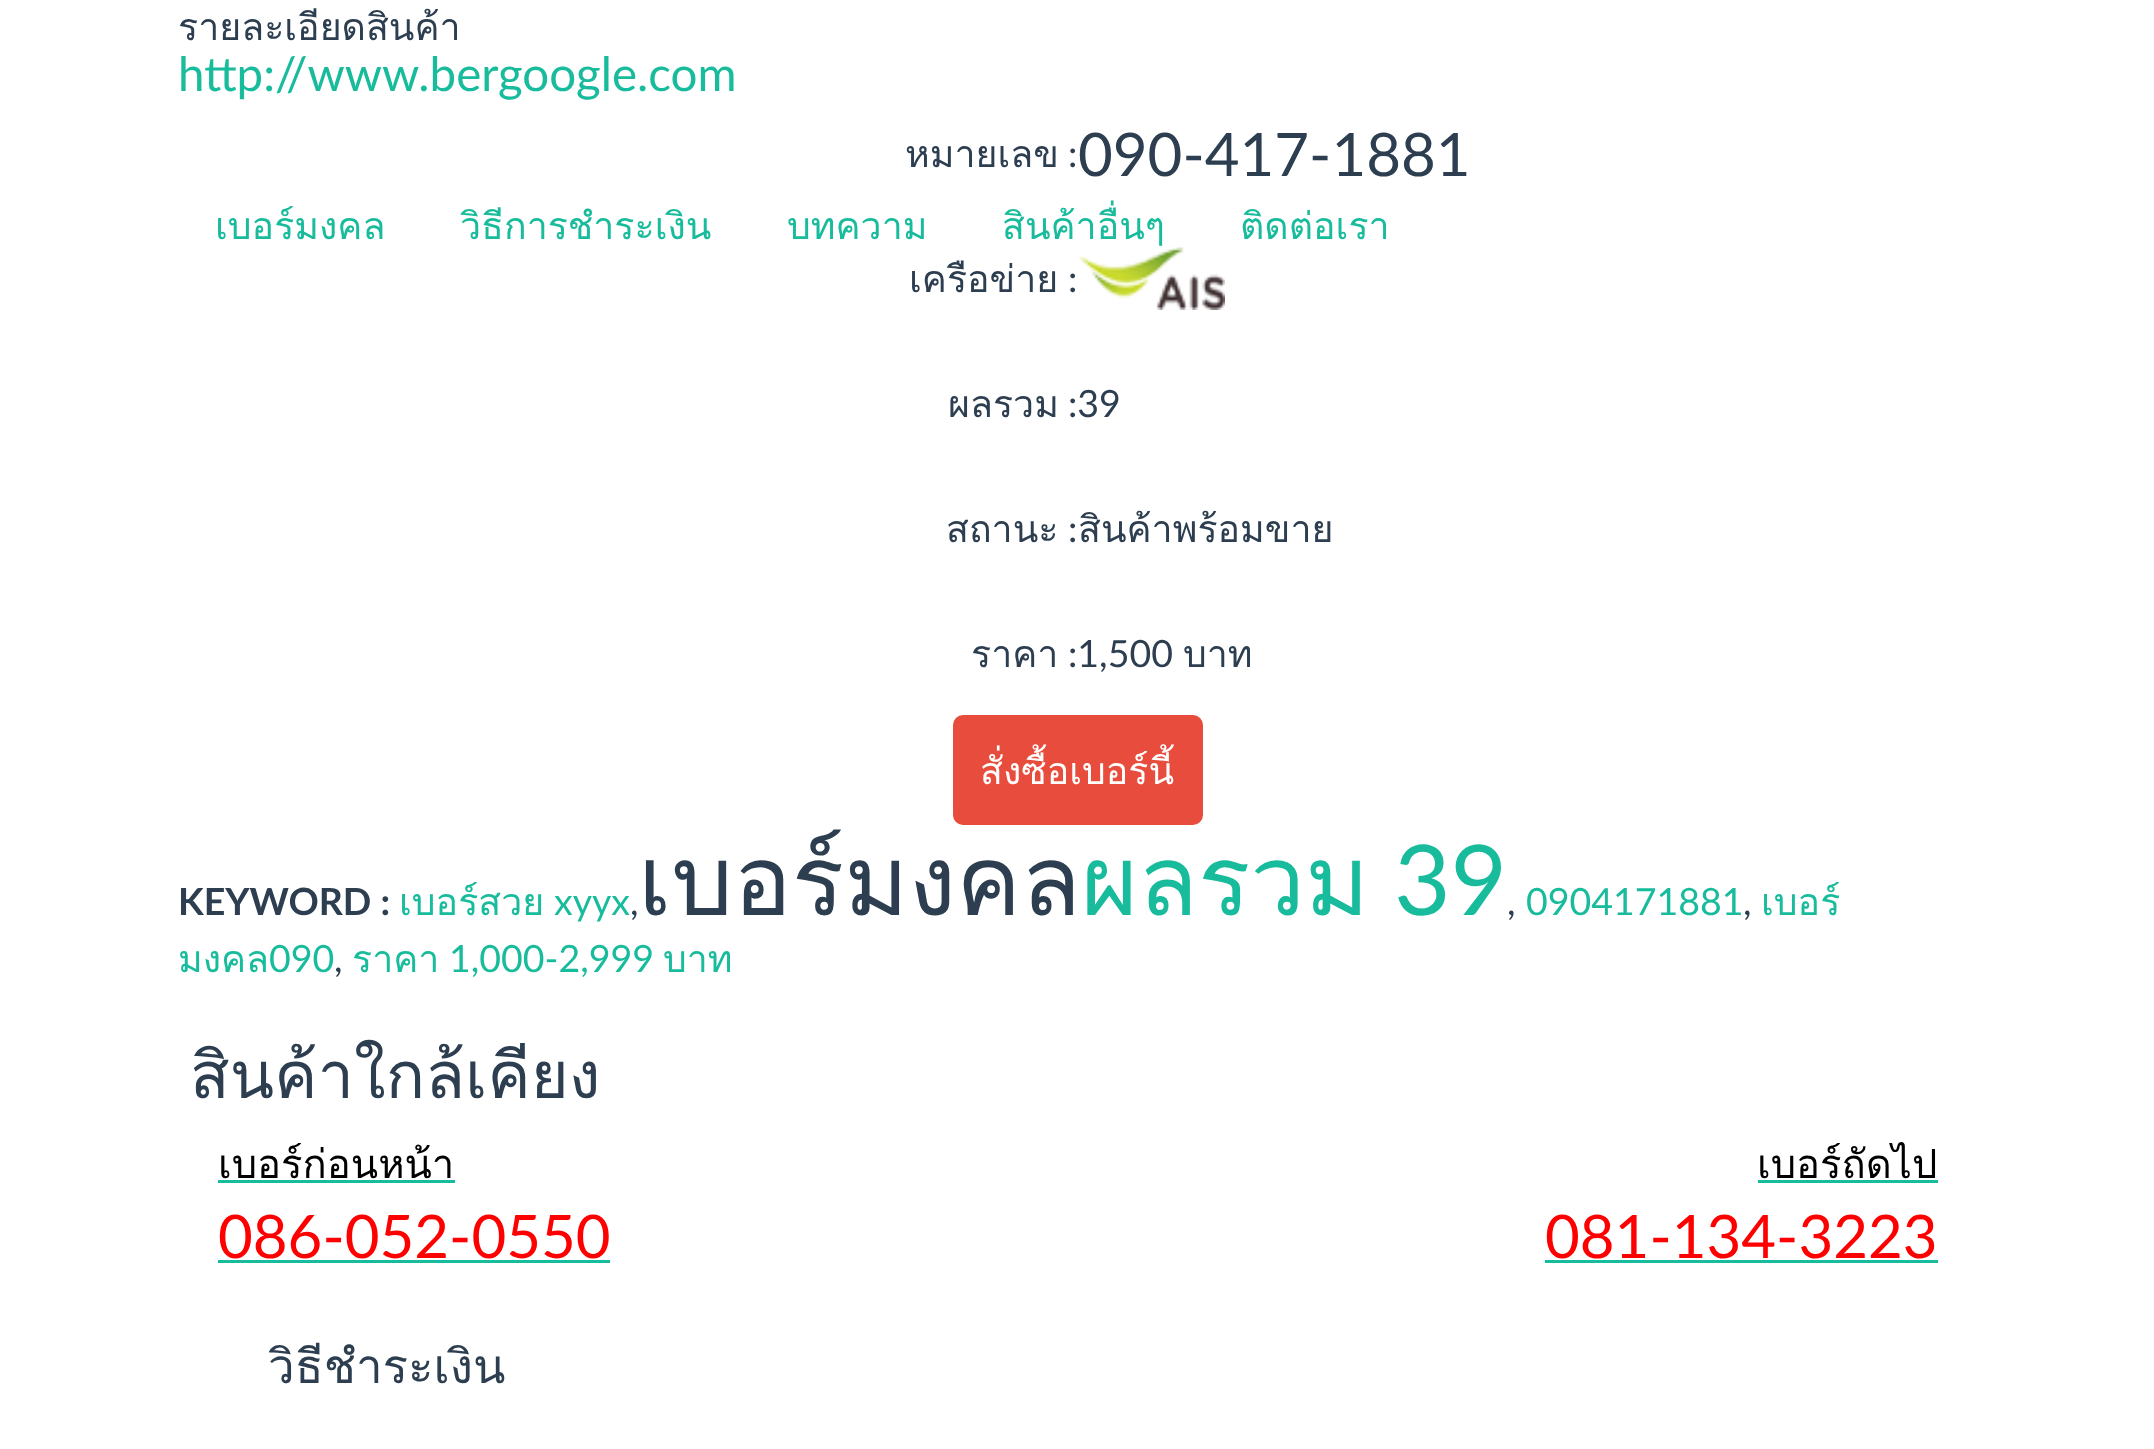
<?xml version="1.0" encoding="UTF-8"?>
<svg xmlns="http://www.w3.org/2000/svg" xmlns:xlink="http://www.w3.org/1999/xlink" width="2154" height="1449">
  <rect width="100%" height="100%" fill="#ffffff" />
  <image x="1078" y="247" width="147" height="63" xlink:href="image1.png" />
  <rect x="954.5" y="716.5" width="247" height="107" rx="8.5" fill="#e74c3c" stroke="#e74c3c" stroke-width="3" />
  <rect x="218" y="1180" width="237" height="3" fill="#18bc9c" />
  <rect x="218" y="1260" width="392" height="3" fill="#18bc9c" />
  <rect x="1758" y="1180" width="180" height="3" fill="#18bc9c" />
  <rect x="1545" y="1260" width="393" height="3" fill="#18bc9c" />
  <text x="178" y="40" style="font-family: Loma; font-size: 37.5px; fill: #2c3e50">รายละเอียดสินค้า</text>
  <text x="905" y="167" style="font-family: Loma; font-size: 37.5px; fill: #2c3e50">หมายเลข</text>
  <text x="1068" y="167" style="font-family: Lato; font-size: 37.5px; fill: #2c3e50">:</text>
  <text x="1078" y="176" style="font-family: Lato; font-size: 60px; fill: #2c3e50">090-417-1881</text>
  <text x="909" y="292" style="font-family: Loma; font-size: 37.5px; fill: #2c3e50">เครือข่าย</text>
  <text x="1068" y="292" style="font-family: Lato; font-size: 37.5px; fill: #2c3e50">:</text>
  <text x="948" y="417" style="font-family: Loma; font-size: 37.5px; fill: #2c3e50">ผลรวม</text>
  <text x="1068" y="417" style="font-family: Lato; font-size: 37.5px; fill: #2c3e50">:39</text>
  <text x="946" y="542" style="font-family: Loma; font-size: 37.5px; fill: #2c3e50">สถานะ</text>
  <text x="1068" y="542" style="font-family: Lato; font-size: 37.5px; fill: #2c3e50">:</text>
  <text x="1078" y="542" style="font-family: Loma; font-size: 37.5px; fill: #2c3e50">สินค้าพร้อมขาย</text>
  <text x="971" y="667" style="font-family: Loma; font-size: 37.5px; fill: #2c3e50">ราคา</text>
  <text x="1068" y="667" style="font-family: Lato; font-size: 37.5px; fill: #2c3e50">:1,500</text>
  <text x="1183" y="667" style="font-family: Loma; font-size: 37.5px; fill: #2c3e50">บาท</text>
  <text x="980" y="784" style="font-family: Loma; font-size: 37.5px; fill: #ffffff">สั่งซื้อเบอร์นี้</text>
  <text x="178" y="915" style="font-family: Lato; font-size: 37.5px; font-weight: bold; fill: #2c3e50">KEYWORD :</text>
  <text x="399" y="915" style="font-family: Loma; font-size: 37.5px; fill: #18bc9c">เบอร์สวย</text>
  <text x="554" y="915" style="font-family: Lato; font-size: 37.5px; fill: #18bc9c">xyyx</text>
  <text x="630" y="915" style="font-family: Lato; font-size: 37.5px; fill: #2c3e50">,</text>
  <text x="638" y="915" style="font-family: Loma; font-size: 97.5px; fill: #2c3e50">เบอร์มงคล</text>
  <text x="1081" y="915" style="font-family: Loma; font-size: 97.5px; fill: #18bc9c">ผลรวม</text>
  <text x="1394" y="915" style="font-family: Lato; font-size: 97.5px; fill: #18bc9c">39</text>
  <text x="1507" y="915" style="font-family: Lato; font-size: 37.5px; fill: #2c3e50">,</text>
  <text x="1526" y="915" style="font-family: Lato; font-size: 37.5px; fill: #18bc9c">0904171881</text>
  <text x="1743" y="915" style="font-family: Lato; font-size: 37.5px; fill: #2c3e50">,</text>
  <text x="1761" y="915" style="font-family: Loma; font-size: 37.5px; fill: #18bc9c">เบอร์</text>
  <text x="178" y="972" style="font-family: Loma; font-size: 37.5px; fill: #18bc9c">มงคล</text>
  <text x="269" y="972" style="font-family: Lato; font-size: 37.5px; fill: #18bc9c">090</text>
  <text x="334" y="972" style="font-family: Lato; font-size: 37.5px; fill: #2c3e50">,</text>
  <text x="352" y="972" style="font-family: Loma; font-size: 37.5px; fill: #18bc9c">ราคา</text>
  <text x="449" y="972" style="font-family: Lato; font-size: 37.5px; fill: #18bc9c">1,000-2,999</text>
  <text x="663" y="972" style="font-family: Loma; font-size: 37.5px; fill: #18bc9c">บาท</text>
  <text x="190" y="1098" style="font-family: Loma; font-size: 65px; fill: #2c3e50">สินค้าใกล้เคียง</text>
  <text x="218" y="1178" style="font-family: Loma; font-size: 40px; fill: #000000">เบอร์ก่อนหน้า</text>
  <text x="218" y="1258" style="font-family: Lato; font-size: 60px; fill: #ff0000">086-052-0550</text>
  <text x="1757" y="1178" style="font-family: Loma; font-size: 40px; fill: #000000">เบอร์ถัดไป</text>
  <text x="1545" y="1258" style="font-family: Lato; font-size: 60px; fill: #ff0000">081-134-3223</text>
  <text x="268" y="1383" style="font-family: Loma; font-size: 47.5px; fill: #2c3e50">วิธีชำระเงิน</text>
  <text x="178" y="91" style="font-family: Lato; font-size: 47.5px; fill: #18bc9c">http://www.bergoogle.com</text>
  <text x="215" y="239" style="font-family: Loma; font-size: 37.5px; fill: #18bc9c">เบอร์มงคล</text>
  <text x="460" y="239" style="font-family: Loma; font-size: 37.5px; fill: #18bc9c">วิธีการชำระเงิน</text>
  <text x="787" y="239" style="font-family: Loma; font-size: 37.5px; fill: #18bc9c">บทความ</text>
  <text x="1002" y="239" style="font-family: Loma; font-size: 37.5px; fill: #18bc9c">สินค้าอื่นๆ</text>
  <text x="1240" y="239" style="font-family: Loma; font-size: 37.5px; fill: #18bc9c">ติดต่อเรา</text>
</svg>
